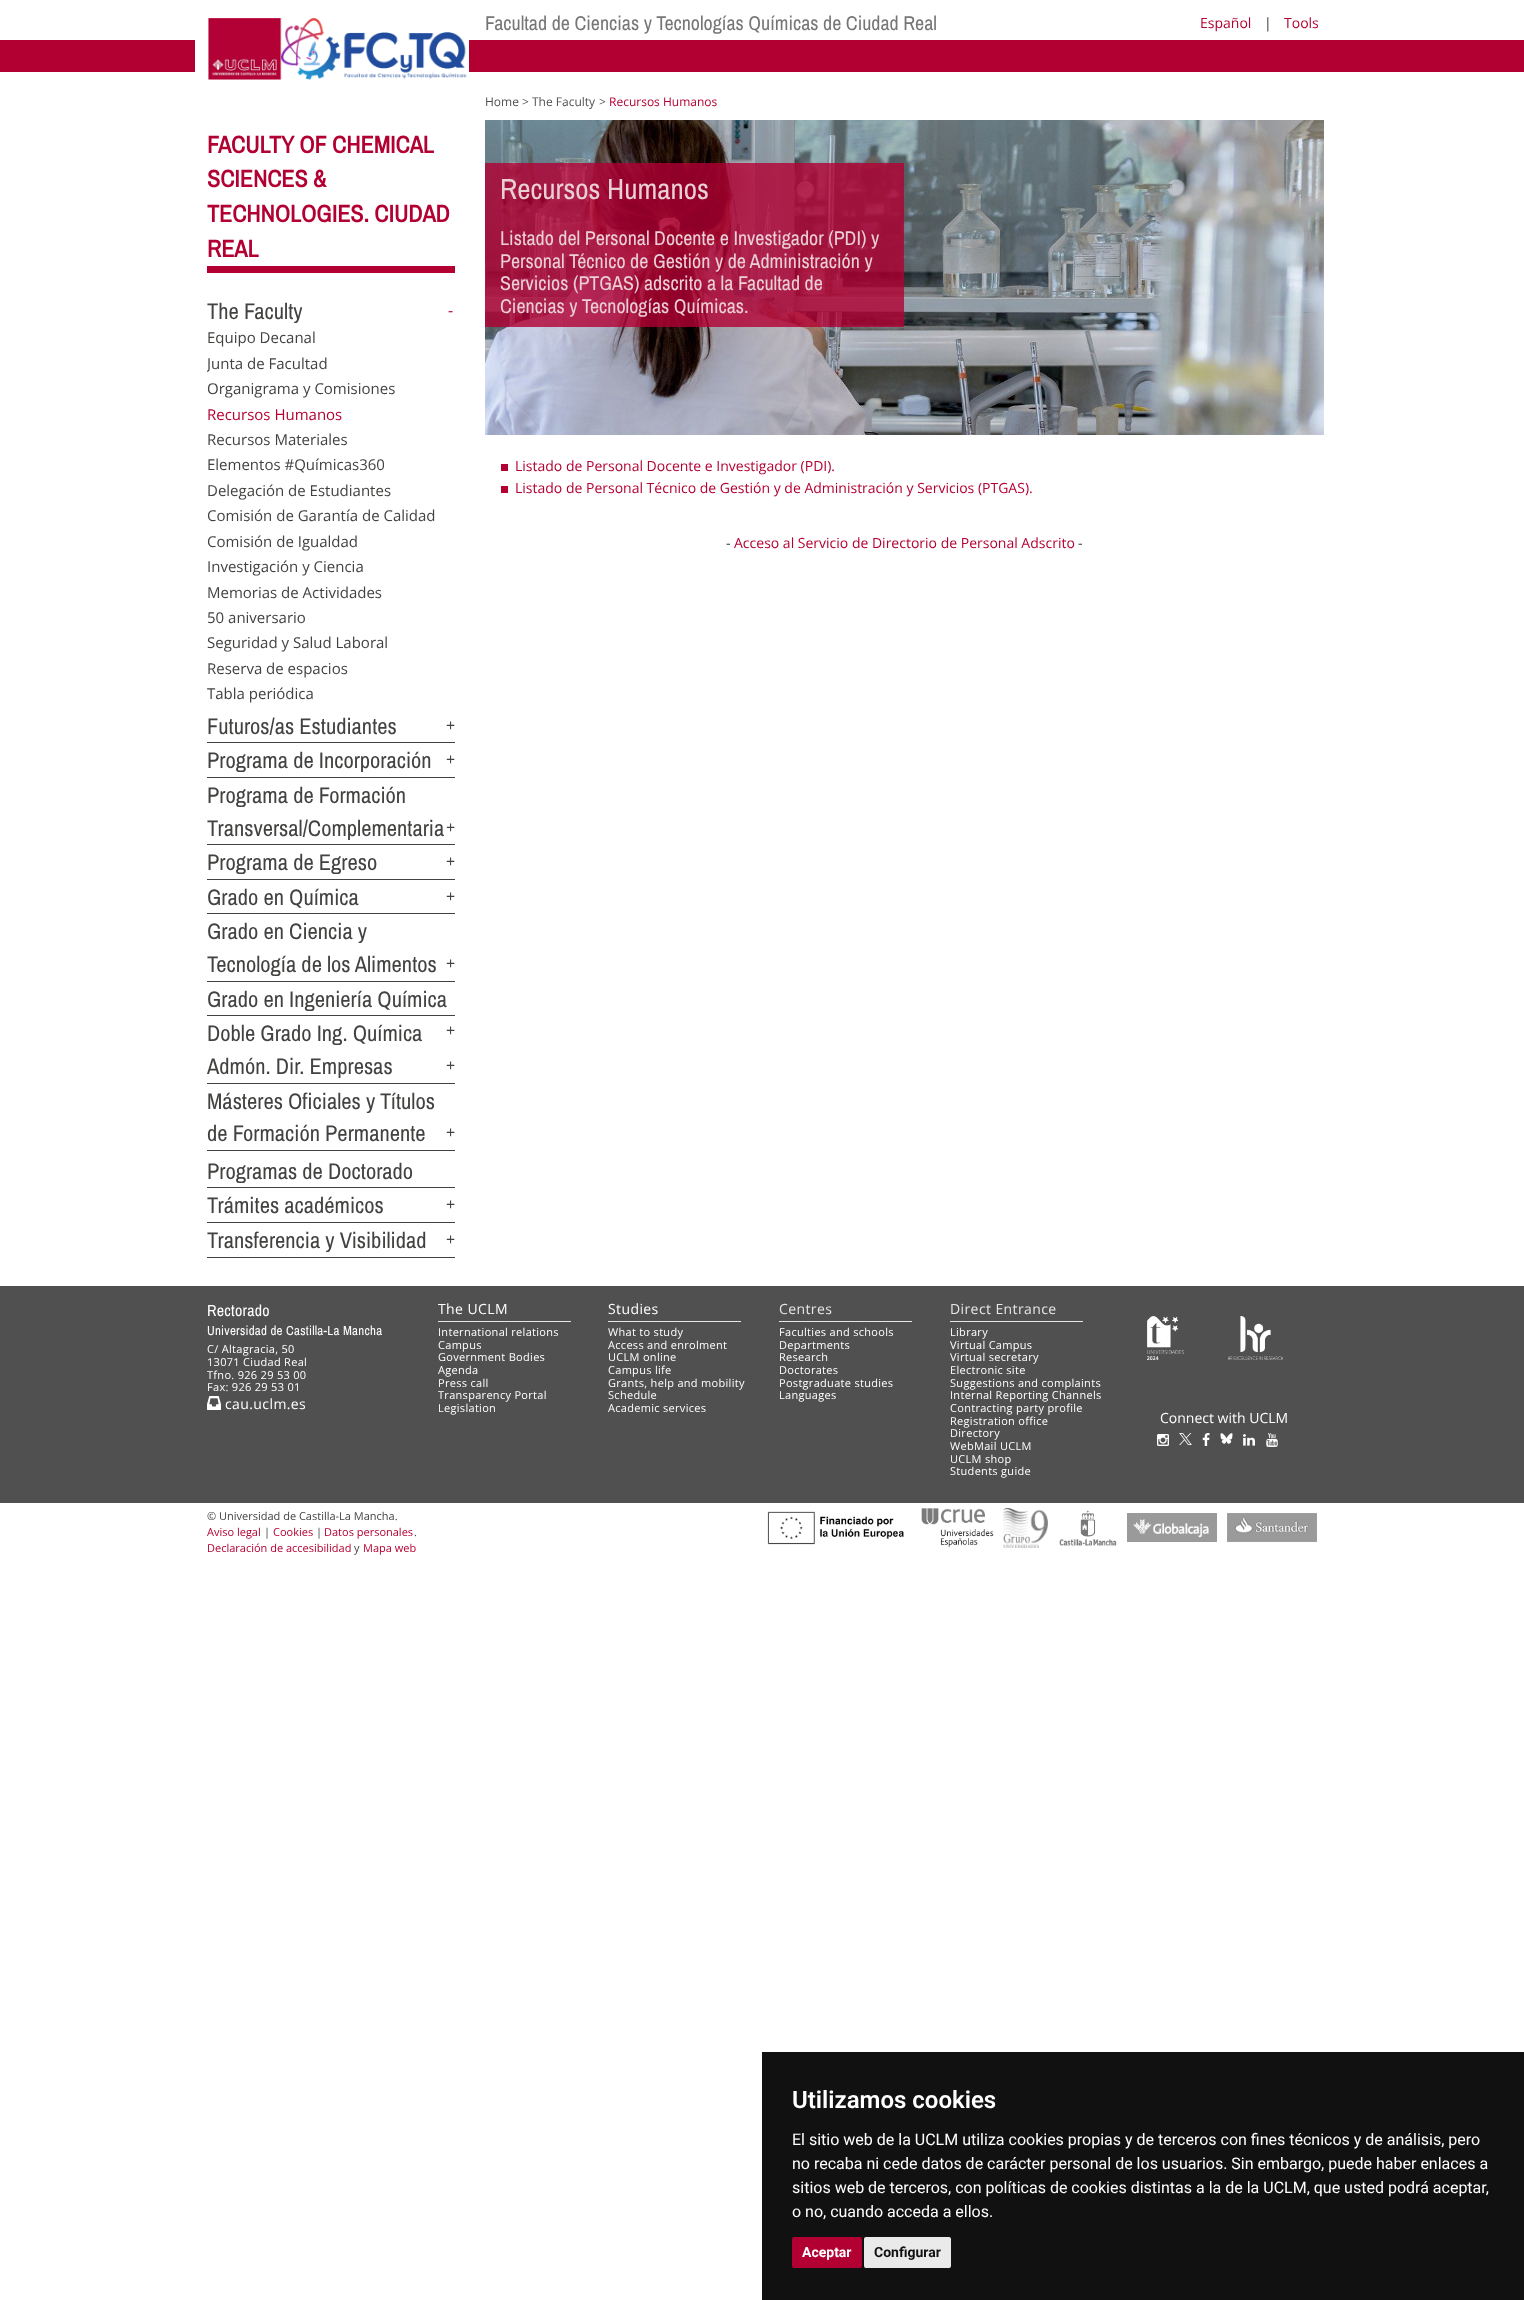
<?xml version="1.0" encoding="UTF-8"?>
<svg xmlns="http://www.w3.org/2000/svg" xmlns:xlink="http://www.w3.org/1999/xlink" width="1524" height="2300">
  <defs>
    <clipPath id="clip1"><rect x="207" y="327" width="248" height="382" /></clipPath>
  </defs>
  <rect width="100%" height="100%" fill="#ffffff" />
  <rect y="40" width="1524" height="32" fill="#b30033" />
  <rect x="195" y="40" width="12" height="32" fill="#ffffff" />
  <image x="207" y="18" width="262" height="62" xlink:href="image1.png" />
  <rect x="207" y="266" width="248" height="7" fill="#b30033" />
  <rect x="207" y="742" width="248" height="1" fill="#424241" />
  <rect x="207" y="777" width="248" height="1" fill="#424241" />
  <rect x="207" y="844" width="248" height="1" fill="#424241" />
  <rect x="207" y="879" width="248" height="1" fill="#424241" />
  <rect x="207" y="913" width="248" height="1" fill="#424241" />
  <rect x="207" y="981" width="248" height="1" fill="#424241" />
  <rect x="207" y="1015" width="248" height="1" fill="#424241" />
  <rect x="207" y="1083" width="248" height="1" fill="#424241" />
  <rect x="207" y="1150" width="248" height="1" fill="#424241" />
  <rect x="207" y="1187" width="248" height="1" fill="#424241" />
  <rect x="207" y="1222" width="248" height="1" fill="#424241" />
  <rect x="207" y="1257" width="248" height="1" fill="#424241" />
  <image x="485" y="120" width="839" height="315" xlink:href="image2.png" />
  <rect x="485" y="163" width="419" height="164" fill="#b30033" fill-opacity="0.8" />
  <rect x="501" y="464" width="7" height="7" fill="#b20032" />
  <rect x="501" y="486" width="7" height="7" fill="#b20032" />
  <rect y="1286" width="1524" height="217" fill="#505050" />
  <image x="207" y="1396" width="14" height="14" xlink:href="image3.png" />
  <rect x="438" y="1321" width="133" height="1" fill="#e6e6e6" />
  <rect x="608" y="1321" width="133" height="1" fill="#e6e6e6" />
  <rect x="779" y="1321" width="133" height="1" fill="#e6e6e6" />
  <rect x="950" y="1321" width="133" height="1" fill="#e6e6e6" />
  <image x="1147" y="1316" width="37" height="44" xlink:href="image4.png" />
  <image x="1228" y="1316" width="55" height="44" xlink:href="image5.png" />
  <image x="1157" y="1434" width="12" height="12" xlink:href="image6.png" />
  <image x="1179" y="1433" width="13" height="12" xlink:href="image7.png" />
  <image x="1202" y="1433" width="8" height="13" xlink:href="image8.png" />
  <image x="1220" y="1433" width="13" height="11" xlink:href="image9.png" />
  <image x="1243" y="1434" width="12" height="12" xlink:href="image10.png" />
  <image x="1266" y="1433" width="12" height="14" xlink:href="image11.png" />
  <image x="767" y="1511" width="137" height="34" xlink:href="image12.png" />
  <image x="921" y="1508" width="73" height="40" xlink:href="image13.png" />
  <image x="1003" y="1508" width="45" height="40" xlink:href="image14.png" />
  <image x="1059" y="1510" width="58" height="36" xlink:href="image15.png" />
  <image x="1127" y="1513" width="90" height="29" xlink:href="image16.png" />
  <image x="1227" y="1513" width="90" height="29" xlink:href="image17.png" />
  <rect x="762" y="2052" width="762" height="248" fill="#111111" />
  <rect x="792" y="2237" width="70" height="31" rx="2" fill="#b30033" />
  <rect x="864" y="2237" width="87" height="31" rx="2" fill="#eaeaea" />
  <text x="485" y="30" style="font-family: Archivo Narrow; font-size: 20px; fill: #767676">Facultad de Ciencias y Tecnologías Químicas de Ciudad Real</text>
  <text x="1200" y="28" style="font-family: Open Sans; font-size: 14px; fill: #b30033">Español</text>
  <text x="1264" y="28" style="font-family: Open Sans; font-size: 14px; fill: #333333">|</text>
  <text x="1284" y="28" style="font-family: Open Sans; font-size: 14px; fill: #b30033">Tools</text>
  <text x="207" y="153" style="font-family: Archivo Narrow; font-size: 24px; font-weight: bold; fill: #b30033">FACULTY OF CHEMICAL</text>
  <text x="207" y="187" style="font-family: Archivo Narrow; font-size: 24px; font-weight: bold; fill: #b30033">SCIENCES &amp;</text>
  <text x="207" y="222" style="font-family: Archivo Narrow; font-size: 24px; font-weight: bold; fill: #b30033">TECHNOLOGIES. CIUDAD</text>
  <text x="207" y="257" style="font-family: Archivo Narrow; font-size: 24px; font-weight: bold; fill: #b30033">REAL</text>
  <text x="207" y="319" style="font-family: Archivo Narrow; font-size: 22.5px; fill: #424241">The Faculty</text>
  <text x="448" y="316" style="font-family: Open Sans; font-size: 16px; fill: #b30033">-</text>
  <text x="207" y="343" style="font-family: Open Sans; font-size: 15px; fill: #424241">Equipo Decanal</text>
  <g clip-path="url(#clip1)">
    <text x="207" y="369" style="font-family: Open Sans; font-size: 15px; fill: #424241">Junta de Facultad</text>
  </g>
  <text x="207" y="394" style="font-family: Open Sans; font-size: 15px; fill: #424241">Organigrama y Comisiones</text>
  <text x="207" y="420" style="font-family: Open Sans; font-size: 15px; fill: #b30033">Recursos Humanos</text>
  <text x="207" y="445" style="font-family: Open Sans; font-size: 15px; fill: #424241">Recursos Materiales</text>
  <text x="207" y="470" style="font-family: Open Sans; font-size: 15px; fill: #424241">Elementos #Químicas360</text>
  <text x="207" y="496" style="font-family: Open Sans; font-size: 15px; fill: #424241">Delegación de Estudiantes</text>
  <text x="207" y="521" style="font-family: Open Sans; font-size: 15px; fill: #424241">Comisión de Garantía de Calidad</text>
  <text x="207" y="547" style="font-family: Open Sans; font-size: 15px; fill: #424241">Comisión de Igualdad</text>
  <text x="207" y="572" style="font-family: Open Sans; font-size: 15px; fill: #424241">Investigación y Ciencia</text>
  <text x="207" y="598" style="font-family: Open Sans; font-size: 15px; fill: #424241">Memorias de Actividades</text>
  <text x="207" y="623" style="font-family: Open Sans; font-size: 15px; fill: #424241">50 aniversario</text>
  <text x="207" y="648" style="font-family: Open Sans; font-size: 15px; fill: #424241">Seguridad y Salud Laboral</text>
  <text x="207" y="674" style="font-family: Open Sans; font-size: 15px; fill: #424241">Reserva de espacios</text>
  <text x="207" y="699" style="font-family: Open Sans; font-size: 15px; fill: #424241">Tabla periódica</text>
  <text x="207" y="734" style="font-family: Archivo Narrow; font-size: 22.5px; fill: #424241">Futuros/as Estudiantes</text>
  <text x="446" y="731" style="font-family: Open Sans; font-size: 16px; fill: #424241">+</text>
  <text x="207" y="768" style="font-family: Archivo Narrow; font-size: 22.5px; fill: #424241">Programa de Incorporación</text>
  <text x="446" y="765" style="font-family: Open Sans; font-size: 16px; fill: #424241">+</text>
  <text x="207" y="803" style="font-family: Archivo Narrow; font-size: 22.5px; fill: #424241">Programa de Formación</text>
  <text x="207" y="836" style="font-family: Archivo Narrow; font-size: 22.5px; fill: #424241">Transversal/Complementaria</text>
  <text x="446" y="833" style="font-family: Open Sans; font-size: 16px; fill: #424241">+</text>
  <text x="207" y="870" style="font-family: Archivo Narrow; font-size: 22.5px; fill: #424241">Programa de Egreso</text>
  <text x="446" y="867" style="font-family: Open Sans; font-size: 16px; fill: #424241">+</text>
  <text x="207" y="905" style="font-family: Archivo Narrow; font-size: 22.5px; fill: #424241">Grado en Química</text>
  <text x="446" y="902" style="font-family: Open Sans; font-size: 16px; fill: #424241">+</text>
  <text x="207" y="939" style="font-family: Archivo Narrow; font-size: 22.5px; fill: #424241">Grado en Ciencia y</text>
  <text x="207" y="972" style="font-family: Archivo Narrow; font-size: 22.5px; fill: #424241">Tecnología de los Alimentos</text>
  <text x="446" y="969" style="font-family: Open Sans; font-size: 16px; fill: #424241">+</text>
  <text x="207" y="1007" style="font-family: Archivo Narrow; font-size: 22.5px; fill: #424241">Grado en Ingeniería Química</text>
  <text x="446" y="1036" style="font-family: Open Sans; font-size: 16px; fill: #424241">+</text>
  <text x="207" y="1041" style="font-family: Archivo Narrow; font-size: 22.5px; fill: #424241">Doble Grado Ing. Química</text>
  <text x="207" y="1074" style="font-family: Archivo Narrow; font-size: 22.5px; fill: #424241">Admón. Dir. Empresas</text>
  <text x="446" y="1071" style="font-family: Open Sans; font-size: 16px; fill: #424241">+</text>
  <text x="207" y="1109" style="font-family: Archivo Narrow; font-size: 22.5px; fill: #424241">Másteres Oficiales y Títulos</text>
  <text x="207" y="1141" style="font-family: Archivo Narrow; font-size: 22.5px; fill: #424241">de Formación Permanente</text>
  <text x="446" y="1138" style="font-family: Open Sans; font-size: 16px; fill: #424241">+</text>
  <text x="207" y="1179" style="font-family: Archivo Narrow; font-size: 22.5px; fill: #424241">Programas de Doctorado</text>
  <text x="207" y="1213" style="font-family: Archivo Narrow; font-size: 22.5px; fill: #424241">Trámites académicos</text>
  <text x="446" y="1210" style="font-family: Open Sans; font-size: 16px; fill: #424241">+</text>
  <text x="207" y="1248" style="font-family: Archivo Narrow; font-size: 22.5px; fill: #424241">Transferencia y Visibilidad</text>
  <text x="446" y="1245" style="font-family: Open Sans; font-size: 16px; fill: #424241">+</text>
  <text x="485" y="106" style="font-family: Open Sans; font-size: 12px; fill: #505050">Home</text>
  <text x="522" y="106" style="font-family: Open Sans; font-size: 12px; fill: #505050">&gt; The Faculty</text>
  <text x="599" y="106" style="font-family: Open Sans; font-size: 12px; fill: #505050">&gt;</text>
  <text x="609" y="106" style="font-family: Open Sans; font-size: 12px; fill: #b30033">Recursos Humanos</text>
  <text x="500" y="199" style="font-family: Archivo Narrow; font-size: 29px; fill: #ebcfd7">Recursos Humanos</text>
  <text x="500" y="245" style="font-family: Archivo Narrow; font-size: 20px; fill: #ebcfd7">Listado del Personal Docente e Investigador (PDI) y</text>
  <text x="500" y="268" style="font-family: Archivo Narrow; font-size: 20px; fill: #ebcfd7">Personal Técnico de Gestión y de Administración y</text>
  <text x="500" y="290" style="font-family: Archivo Narrow; font-size: 20px; fill: #ebcfd7">Servicios (PTGAS) adscrito a la Facultad de</text>
  <text x="500" y="313" style="font-family: Archivo Narrow; font-size: 20px; fill: #ebcfd7">Ciencias y Tecnologías Químicas.</text>
  <text x="515" y="471" style="font-family: Open Sans; font-size: 14px; fill: #b30033">Listado de Personal Docente e Investigador (PDI).</text>
  <text x="515" y="493" style="font-family: Open Sans; font-size: 14px; fill: #b30033">Listado de Personal Técnico de Gestión y de Administración y Servicios (PTGAS).</text>
  <text x="726" y="548" style="font-family: Open Sans; font-size: 14px; fill: #333333">-</text>
  <text x="734" y="548" style="font-family: Open Sans; font-size: 14px; fill: #b30033">Acceso al Servicio de Directorio de Personal Adscrito</text>
  <text x="1078" y="548" style="font-family: Open Sans; font-size: 14px; fill: #333333">-</text>
  <text x="207" y="1316" style="font-family: Archivo Narrow; font-size: 16px; letter-spacing: 0.25px; fill: #ffffff">Rectorado</text>
  <text x="207" y="1335" style="font-family: Archivo Narrow; font-size: 13px; letter-spacing: 0.25px; fill: #ffffff">Universidad de Castilla-La Mancha</text>
  <text x="207" y="1353" style="font-family: Open Sans; font-size: 11px; letter-spacing: 0.3px; fill: #ffffff">C/ Altagracia, 50</text>
  <text x="207" y="1366" style="font-family: Open Sans; font-size: 11px; letter-spacing: 0.3px; fill: #ffffff">13071 Ciudad Real</text>
  <text x="207" y="1379" style="font-family: Open Sans; font-size: 11px; letter-spacing: 0.3px; fill: #ffffff">Tfno. 926 29 53 00</text>
  <text x="207" y="1391" style="font-family: Open Sans; font-size: 11px; letter-spacing: 0.3px; fill: #ffffff">Fax: 926 29 53 01</text>
  <text x="225" y="1409" style="font-family: Open Sans; font-size: 14px; letter-spacing: 0.4px; fill: #ffffff">cau.uclm.es</text>
  <text x="438" y="1314" style="font-family: Open Sans; font-size: 14px; letter-spacing: 0.4px; fill: #ffffff">The UCLM</text>
  <text x="438" y="1336" style="font-family: Open Sans; font-size: 11px; letter-spacing: 0.3px; fill: #ffffff">International relations</text>
  <text x="438" y="1349" style="font-family: Open Sans; font-size: 11px; letter-spacing: 0.3px; fill: #ffffff">Campus</text>
  <text x="438" y="1361" style="font-family: Open Sans; font-size: 11px; letter-spacing: 0.3px; fill: #ffffff">Government Bodies</text>
  <text x="438" y="1374" style="font-family: Open Sans; font-size: 11px; letter-spacing: 0.3px; fill: #ffffff">Agenda</text>
  <text x="438" y="1387" style="font-family: Open Sans; font-size: 11px; letter-spacing: 0.3px; fill: #ffffff">Press call</text>
  <text x="438" y="1399" style="font-family: Open Sans; font-size: 11px; letter-spacing: 0.3px; fill: #ffffff">Transparency Portal</text>
  <text x="438" y="1412" style="font-family: Open Sans; font-size: 11px; letter-spacing: 0.3px; fill: #ffffff">Legislation</text>
  <text x="608" y="1314" style="font-family: Open Sans; font-size: 14px; letter-spacing: 0.4px; fill: #ffffff">Studies</text>
  <text x="608" y="1336" style="font-family: Open Sans; font-size: 11px; letter-spacing: 0.3px; fill: #ffffff">What to study</text>
  <text x="608" y="1349" style="font-family: Open Sans; font-size: 11px; letter-spacing: 0.3px; fill: #ffffff">Access and enrolment</text>
  <text x="608" y="1361" style="font-family: Open Sans; font-size: 11px; letter-spacing: 0.3px; fill: #ffffff">UCLM online</text>
  <text x="608" y="1374" style="font-family: Open Sans; font-size: 11px; letter-spacing: 0.3px; fill: #ffffff">Campus life</text>
  <text x="608" y="1387" style="font-family: Open Sans; font-size: 11px; letter-spacing: 0.3px; fill: #ffffff">Grants, help and mobility</text>
  <text x="608" y="1399" style="font-family: Open Sans; font-size: 11px; letter-spacing: 0.3px; fill: #ffffff">Schedule</text>
  <text x="608" y="1412" style="font-family: Open Sans; font-size: 11px; letter-spacing: 0.3px; fill: #ffffff">Academic services</text>
  <text x="779" y="1314" style="font-family: Open Sans; font-size: 14px; letter-spacing: 0.4px; fill: #e6e6e6">Centres</text>
  <text x="779" y="1336" style="font-family: Open Sans; font-size: 11px; letter-spacing: 0.3px; fill: #ffffff">Faculties and schools</text>
  <text x="779" y="1349" style="font-family: Open Sans; font-size: 11px; letter-spacing: 0.3px; fill: #ffffff">Departments</text>
  <text x="779" y="1361" style="font-family: Open Sans; font-size: 11px; letter-spacing: 0.3px; fill: #ffffff">Research</text>
  <text x="779" y="1374" style="font-family: Open Sans; font-size: 11px; letter-spacing: 0.3px; fill: #ffffff">Doctorates</text>
  <text x="779" y="1387" style="font-family: Open Sans; font-size: 11px; letter-spacing: 0.3px; fill: #ffffff">Postgraduate studies</text>
  <text x="779" y="1399" style="font-family: Open Sans; font-size: 11px; letter-spacing: 0.3px; fill: #ffffff">Languages</text>
  <text x="950" y="1314" style="font-family: Open Sans; font-size: 14px; letter-spacing: 0.4px; fill: #e6e6e6">Direct Entrance</text>
  <text x="950" y="1336" style="font-family: Open Sans; font-size: 11px; letter-spacing: 0.3px; fill: #ffffff">Library</text>
  <text x="950" y="1349" style="font-family: Open Sans; font-size: 11px; letter-spacing: 0.3px; fill: #ffffff">Virtual Campus</text>
  <text x="950" y="1361" style="font-family: Open Sans; font-size: 11px; letter-spacing: 0.3px; fill: #ffffff">Virtual secretary</text>
  <text x="950" y="1374" style="font-family: Open Sans; font-size: 11px; letter-spacing: 0.3px; fill: #ffffff">Electronic site</text>
  <text x="950" y="1387" style="font-family: Open Sans; font-size: 11px; letter-spacing: 0.3px; fill: #ffffff">Suggestions and complaints</text>
  <text x="950" y="1399" style="font-family: Open Sans; font-size: 11px; letter-spacing: 0.3px; fill: #ffffff">Internal Reporting Channels</text>
  <text x="950" y="1412" style="font-family: Open Sans; font-size: 11px; letter-spacing: 0.3px; fill: #ffffff">Contracting party profile</text>
  <text x="950" y="1425" style="font-family: Open Sans; font-size: 11px; letter-spacing: 0.3px; fill: #ffffff">Registration office</text>
  <text x="950" y="1437" style="font-family: Open Sans; font-size: 11px; letter-spacing: 0.3px; fill: #ffffff">Directory</text>
  <text x="950" y="1450" style="font-family: Open Sans; font-size: 11px; letter-spacing: 0.3px; fill: #ffffff">WebMail UCLM</text>
  <text x="950" y="1463" style="font-family: Open Sans; font-size: 11px; letter-spacing: 0.3px; fill: #ffffff">UCLM shop</text>
  <text x="950" y="1475" style="font-family: Open Sans; font-size: 11px; letter-spacing: 0.3px; fill: #ffffff">Students guide</text>
  <text x="1160" y="1423" style="font-family: Open Sans; font-size: 14px; fill: #ffffff">Connect with UCLM</text>
  <text x="207" y="1520" style="font-family: Open Sans; font-size: 11px; fill: #424241">© Universidad de Castilla-La Mancha.</text>
  <text x="207" y="1536" style="font-family: Open Sans; font-size: 11px; fill: #b30033">Aviso legal</text>
  <text x="264" y="1536" style="font-family: Open Sans; font-size: 11px; fill: #424241">|</text>
  <text x="273" y="1536" style="font-family: Open Sans; font-size: 11px; fill: #b30033">Cookies</text>
  <text x="316" y="1536" style="font-family: Open Sans; font-size: 11px; fill: #424241">|</text>
  <text x="324" y="1536" style="font-family: Open Sans; font-size: 11px; fill: #b30033">Datos personales</text>
  <text x="414" y="1536" style="font-family: Open Sans; font-size: 11px; fill: #424241">.</text>
  <text x="207" y="1552" style="font-family: Open Sans; font-size: 11px; fill: #b30033">Declaración de accesibilidad</text>
  <text x="354" y="1552" style="font-family: Open Sans; font-size: 11px; fill: #424241">y</text>
  <text x="363" y="1552" style="font-family: Open Sans; font-size: 11px; fill: #b30033">Mapa web</text>
  <text x="792" y="2108" style="font-family: Roboto; font-size: 24px; font-weight: 600; fill: #ffffff">Utilizamos cookies</text>
  <text x="792" y="2145" style="font-family: Roboto; font-size: 16px; fill: #ffffff">El sitio web de la UCLM utiliza cookies propias y de terceros con fines técnicos y de análisis, pero</text>
  <text x="792" y="2169" style="font-family: Roboto; font-size: 16px; fill: #ffffff">no recaba ni cede datos de carácter personal de los usuarios. Sin embargo, puede haber enlaces a</text>
  <text x="792" y="2193" style="font-family: Roboto; font-size: 16px; fill: #ffffff">sitios web de terceros, con políticas de cookies distintas a la de la UCLM, que usted podrá aceptar,</text>
  <text x="792" y="2217" style="font-family: Roboto; font-size: 16px; fill: #ffffff">o no, cuando acceda a ellos.</text>
  <text x="802" y="2257" style="font-family: Roboto; font-size: 14px; font-weight: bold; fill: #ffffff">Aceptar</text>
  <text x="874" y="2257" style="font-family: Roboto; font-size: 14px; font-weight: bold; fill: #111111">Configurar</text>
</svg>
